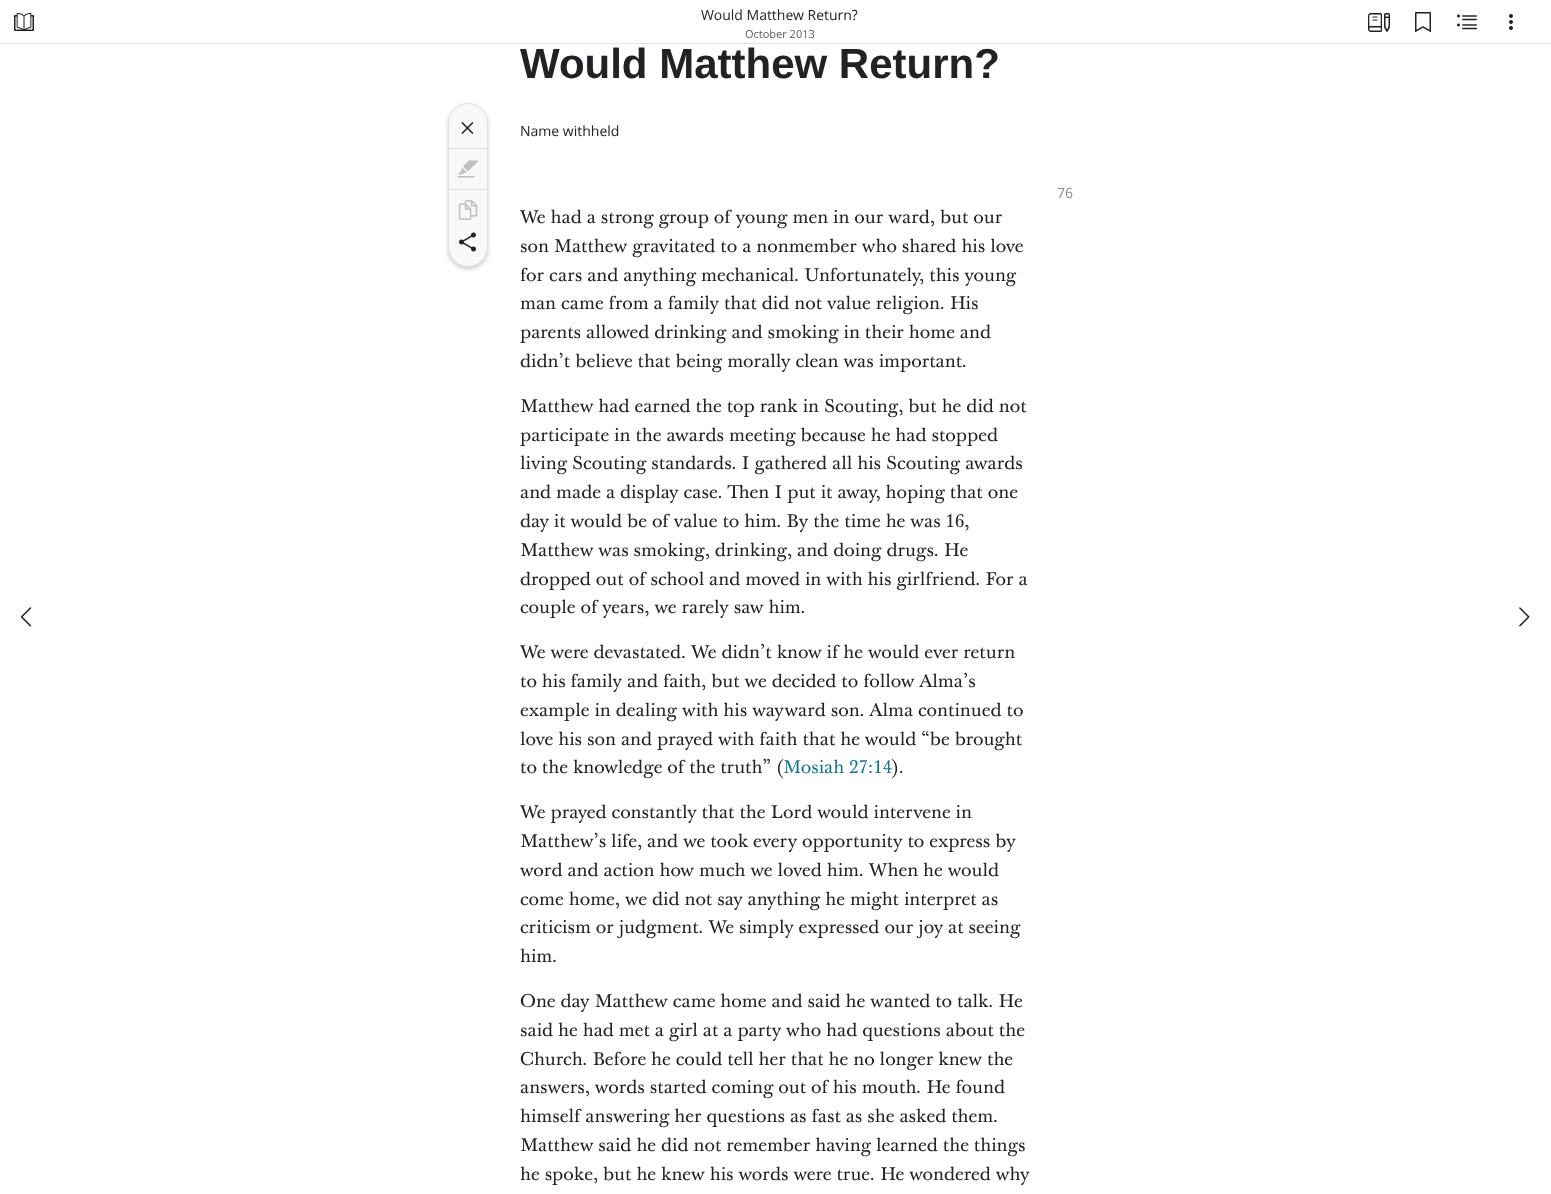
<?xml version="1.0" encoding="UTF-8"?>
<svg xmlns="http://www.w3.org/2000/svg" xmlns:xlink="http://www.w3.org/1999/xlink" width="1551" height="1194">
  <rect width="100%" height="100%" fill="#ffffff" />
  <rect y="43" width="1551" height="1" fill="#e0e2e2" />
  <image x="14" y="13" width="20" height="18" xlink:href="image1.png" />
  <image x="1368" y="13" width="22" height="19" xlink:href="image2.png" />
  <image x="1415" y="12" width="16" height="20" xlink:href="image3.png" />
  <image x="1457" y="14" width="20" height="16" xlink:href="image4.png" />
  <image x="1509" y="14" width="4" height="16" xlink:href="image5.png" />
  <image x="20" y="607" width="12" height="20" xlink:href="image6.png" />
  <rect x="448" y="105" width="40" height="164" rx="20" fill="#000000" fill-opacity="0.2" filter="blur(2px)" />
  <rect x="448.5" y="103.5" width="39" height="163" rx="19.5" fill="#f7f8f8" stroke="#e0e2e2" />
  <image x="461" y="122" width="13" height="12" xlink:href="image7.png" />
  <rect x="449" y="148" width="38" height="1" fill="#e0e2e2" />
  <image x="457" y="160" width="22" height="18" xlink:href="image8.png" />
  <rect x="449" y="189" width="38" height="1" fill="#e0e2e2" />
  <image x="458" y="200" width="20" height="20" xlink:href="image9.png" />
  <image x="459" y="232" width="17" height="20" xlink:href="image10.png" />
  <image x="1519" y="607" width="11" height="20" xlink:href="image11.png" />
  <text x="701" y="20" style="font-family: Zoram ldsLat; font-size: 14px; fill: #212225">Would Matthew Return?</text>
  <text x="745" y="38" style="font-family: Zoram ldsLat; font-size: 11px; fill: #53575b">October 2013</text>
  <text x="520" y="78" style="font-family: Liberation Sans; font-size: 42px; font-weight: bold; fill: #212225">Would Matthew Return?</text>
  <text x="520" y="136" style="font-family: Zoram ldsLat; font-size: 14px; fill: #212225">Name withheld</text>
  <text x="1057" y="198" style="font-family: Zoram ldsLat; font-size: 14px; fill: #878a8c">76</text>
  <text x="520" y="223" style="font-family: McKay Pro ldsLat; font-size: 18px; fill: #212225">We had a strong group of young men in our ward, but our</text>
  <text x="520" y="252" style="font-family: McKay Pro ldsLat; font-size: 18px; fill: #212225">son Matthew gravitated to a nonmember who shared his love</text>
  <text x="520" y="281" style="font-family: McKay Pro ldsLat; font-size: 18px; fill: #212225">for cars and anything mechanical. Unfortunately, this young</text>
  <text x="520" y="309" style="font-family: McKay Pro ldsLat; font-size: 18px; fill: #212225">man came from a family that did not value religion. His</text>
  <text x="520" y="338" style="font-family: McKay Pro ldsLat; font-size: 18px; fill: #212225">parents allowed drinking and smoking in their home and</text>
  <text x="520" y="367" style="font-family: McKay Pro ldsLat; font-size: 18px; fill: #212225">didn’t believe that being morally clean was important.</text>
  <text x="520" y="412" style="font-family: McKay Pro ldsLat; font-size: 18px; fill: #212225">Matthew had earned the top rank in Scouting, but he did not</text>
  <text x="520" y="441" style="font-family: McKay Pro ldsLat; font-size: 18px; fill: #212225">participate in the awards meeting because he had stopped</text>
  <text x="520" y="469" style="font-family: McKay Pro ldsLat; font-size: 18px; fill: #212225">living Scouting standards. I gathered all his Scouting awards</text>
  <text x="520" y="498" style="font-family: McKay Pro ldsLat; font-size: 18px; fill: #212225">and made a display case. Then I put it away, hoping that one</text>
  <text x="520" y="527" style="font-family: McKay Pro ldsLat; font-size: 18px; fill: #212225">day it would be of value to him. By the time he was 16,</text>
  <text x="520" y="556" style="font-family: McKay Pro ldsLat; font-size: 18px; fill: #212225">Matthew was smoking, drinking, and doing drugs. He</text>
  <text x="520" y="585" style="font-family: McKay Pro ldsLat; font-size: 18px; fill: #212225">dropped out of school and moved in with his girlfriend. For a</text>
  <text x="520" y="613" style="font-family: McKay Pro ldsLat; font-size: 18px; fill: #212225">couple of years, we rarely saw him.</text>
  <text x="520" y="658" style="font-family: McKay Pro ldsLat; font-size: 18px; fill: #212225">We were devastated. We didn’t know if he would ever return</text>
  <text x="520" y="687" style="font-family: McKay Pro ldsLat; font-size: 18px; fill: #212225">to his family and faith, but we decided to follow Alma’s</text>
  <text x="520" y="716" style="font-family: McKay Pro ldsLat; font-size: 18px; fill: #212225">example in dealing with his wayward son. Alma continued to</text>
  <text x="520" y="745" style="font-family: McKay Pro ldsLat; font-size: 18px; fill: #212225">love his son and prayed with faith that he would “be brought</text>
  <text x="520" y="773" style="font-family: McKay Pro ldsLat; font-size: 18px; fill: #212225">to the knowledge of the truth” (</text>
  <text x="783" y="773" style="font-family: McKay Pro ldsLat; font-size: 18px; fill: #157493">Mosiah 27:14</text>
  <text x="892" y="773" style="font-family: McKay Pro ldsLat; font-size: 18px; fill: #212225">).</text>
  <text x="520" y="818" style="font-family: McKay Pro ldsLat; font-size: 18px; fill: #212225">We prayed constantly that the Lord would intervene in</text>
  <text x="520" y="847" style="font-family: McKay Pro ldsLat; font-size: 18px; fill: #212225">Matthew’s life, and we took every opportunity to express by</text>
  <text x="520" y="876" style="font-family: McKay Pro ldsLat; font-size: 18px; fill: #212225">word and action how much we loved him. When he would</text>
  <text x="520" y="905" style="font-family: McKay Pro ldsLat; font-size: 18px; fill: #212225">come home, we did not say anything he might interpret as</text>
  <text x="520" y="933" style="font-family: McKay Pro ldsLat; font-size: 18px; fill: #212225">criticism or judgment. We simply expressed our joy at seeing</text>
  <text x="520" y="962" style="font-family: McKay Pro ldsLat; font-size: 18px; fill: #212225">him.</text>
  <text x="520" y="1007" style="font-family: McKay Pro ldsLat; font-size: 18px; fill: #212225">One day Matthew came home and said he wanted to talk. He</text>
  <text x="520" y="1036" style="font-family: McKay Pro ldsLat; font-size: 18px; fill: #212225">said he had met a girl at a party who had questions about the</text>
  <text x="520" y="1065" style="font-family: McKay Pro ldsLat; font-size: 18px; fill: #212225">Church. Before he could tell her that he no longer knew the</text>
  <text x="520" y="1093" style="font-family: McKay Pro ldsLat; font-size: 18px; fill: #212225">answers, words started coming out of his mouth. He found</text>
  <text x="520" y="1122" style="font-family: McKay Pro ldsLat; font-size: 18px; fill: #212225">himself answering her questions as fast as she asked them.</text>
  <text x="520" y="1151" style="font-family: McKay Pro ldsLat; font-size: 18px; fill: #212225">Matthew said he did not remember having learned the things</text>
  <text x="520" y="1180" style="font-family: McKay Pro ldsLat; font-size: 18px; fill: #212225">he spoke, but he knew his words were true. He wondered why</text>
</svg>
